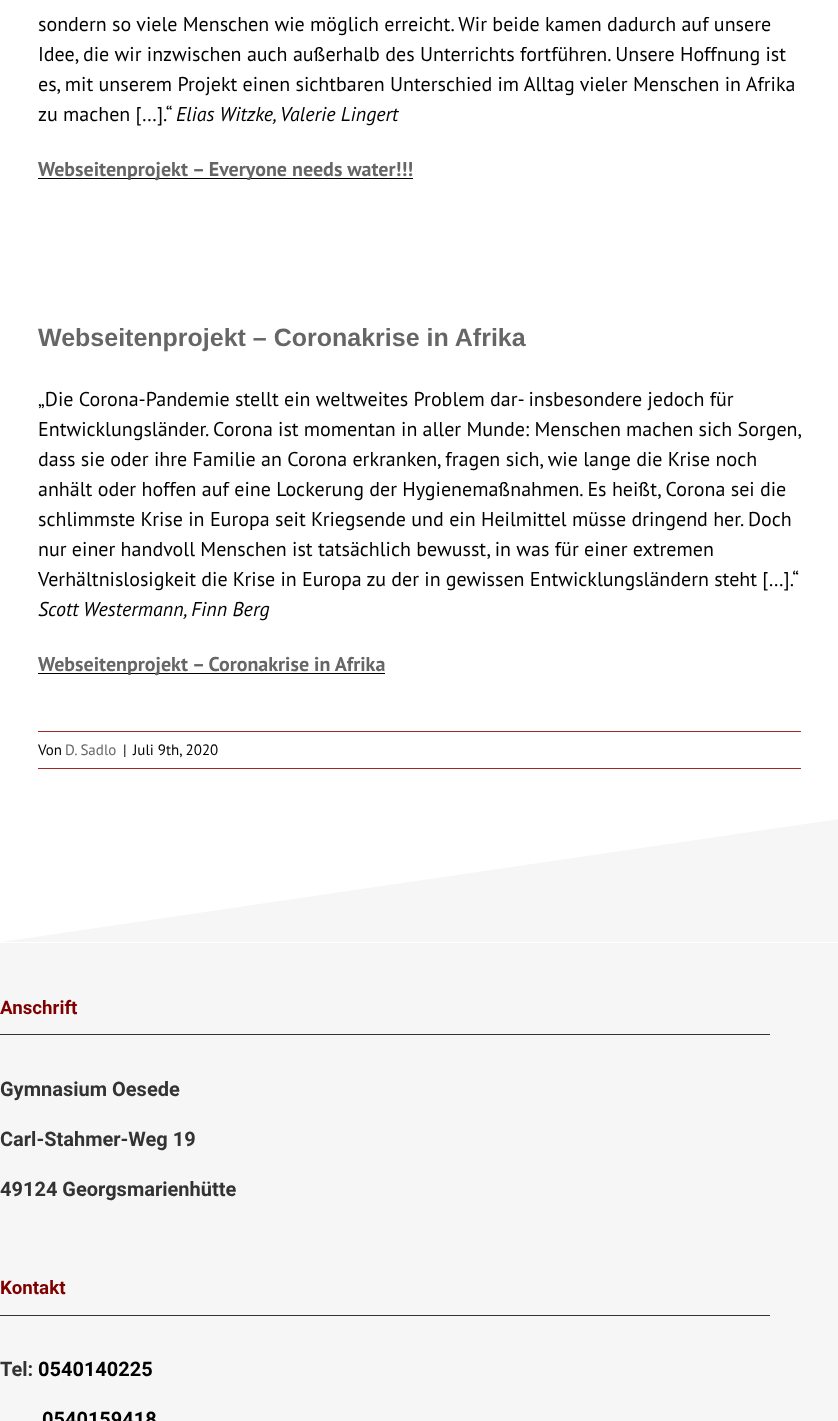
<?xml version="1.0" encoding="UTF-8"?>
<svg xmlns="http://www.w3.org/2000/svg" xmlns:xlink="http://www.w3.org/1999/xlink" width="838" height="1421">
  <rect width="100%" height="100%" fill="#ffffff" />
  <rect x="38" y="178" width="375" height="1" fill="#000000" />
  <rect x="38" y="673" width="347" height="1" fill="#000000" />
  <rect x="38" y="731" width="763" height="1" fill="#a02828" />
  <rect x="38" y="768" width="763" height="1" fill="#a02828" />
  <path d="M 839 819 l -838 123 h 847 z" fill="#f6f6f6" />
  <rect y="943" width="838" height="478" fill="#f6f6f6" />
  <rect y="1034" width="770" height="1" fill="#333333" />
  <rect y="1315" width="770" height="1" fill="#333333" />
  <text x="38" y="31" style="font-family: PT Sans; font-size: 20px; fill: #000000">sondern so viele Menschen wie möglich erreicht. Wir beide kamen dadurch auf unsere</text>
  <text x="38" y="61" style="font-family: PT Sans; font-size: 20px; fill: #000000">Idee, die wir inzwischen auch außerhalb des Unterrichts fortführen. Unsere Hoffnung ist</text>
  <text x="38" y="91" style="font-family: PT Sans; font-size: 20px; fill: #000000">es, mit unserem Projekt einen sichtbaren Unterschied im Alltag vieler Menschen in Afrika</text>
  <text x="38" y="121" style="font-family: PT Sans; font-size: 20px; fill: #000000">zu machen […].“</text>
  <text x="176" y="121" style="font-family: PT Sans; font-size: 20px; font-style: italic; fill: #000000">Elias Witzke, Valerie Lingert</text>
  <text x="38" y="176" style="font-family: PT Sans; font-size: 20px; font-weight: bold; fill: #666666">Webseitenprojekt – Everyone needs water!!!</text>
  <text x="38" y="346" style="font-family: Liberation Sans; font-size: 25px; font-weight: bold; fill: #666666">Webseitenprojekt – Coronakrise in Afrika</text>
  <text x="38" y="406" style="font-family: PT Sans; font-size: 20px; fill: #000000">„Die Corona-Pandemie stellt ein weltweites Problem dar- insbesondere jedoch für</text>
  <text x="38" y="436" word-spacing="-0.1" style="font-family: PT Sans; font-size: 20px; fill: #000000">Entwicklungsländer. Corona ist momentan in aller Munde: Menschen machen sich Sorgen,</text>
  <text x="38" y="466" style="font-family: PT Sans; font-size: 20px; fill: #000000">dass sie oder ihre Familie an Corona erkranken, fragen sich, wie lange die Krise noch</text>
  <text x="38" y="496" style="font-family: PT Sans; font-size: 20px; fill: #000000">anhält oder hoffen auf eine Lockerung der Hygienemaßnahmen. Es heißt, Corona sei die</text>
  <text x="38" y="526" style="font-family: PT Sans; font-size: 20px; fill: #000000">schlimmste Krise in Europa seit Kriegsende und ein Heilmittel müsse dringend her. Doch</text>
  <text x="38" y="556" style="font-family: PT Sans; font-size: 20px; fill: #000000">nur einer handvoll Menschen ist tatsächlich bewusst, in was für einer extremen</text>
  <text x="38" y="586" word-spacing="-0.1" style="font-family: PT Sans; font-size: 20px; fill: #000000">Verhältnislosigkeit die Krise in Europa zu der in gewissen Entwicklungsländern steht […].“</text>
  <text x="38" y="616" style="font-family: PT Sans; font-size: 20px; font-style: italic; fill: #000000">Scott Westermann, Finn Berg</text>
  <text x="38" y="671" style="font-family: PT Sans; font-size: 20px; font-weight: bold; fill: #666666">Webseitenprojekt – Coronakrise in Afrika</text>
  <text x="38" y="755" style="font-family: PT Sans; font-size: 15px; fill: #000000">Von</text>
  <text x="65" y="755" style="font-family: PT Sans; font-size: 15px; fill: #666666">D. Sadlo</text>
  <text x="123" y="755" style="font-family: PT Sans; font-size: 15px; fill: #000000">|</text>
  <text x="133" y="755" style="font-family: PT Sans; font-size: 15px; fill: #000000">Juli 9th, 2020</text>
  <text x="0" y="1014" style="font-family: Roboto; font-size: 18.75px; font-weight: bold; fill: #800000">Anschrift</text>
  <text x="0" y="1096" style="font-family: Roboto; font-size: 20px; font-weight: bold; fill: #333333">Gymnasium Oesede</text>
  <text x="0" y="1146" style="font-family: Roboto; font-size: 20px; font-weight: bold; fill: #333333">Carl-Stahmer-Weg 19</text>
  <text x="0" y="1196" style="font-family: Roboto; font-size: 20px; font-weight: bold; fill: #333333">49124 Georgsmarienhütte</text>
  <text x="0" y="1294" style="font-family: Roboto; font-size: 18.75px; font-weight: bold; fill: #800000">Kontakt</text>
  <text x="0" y="1376" style="font-family: Roboto; font-size: 20px; font-weight: bold; fill: #333333">Tel:</text>
  <text x="38" y="1376" style="font-family: Roboto; font-size: 20px; font-weight: bold; fill: #000000">0540140225</text>
  <text x="42" y="1426" style="font-family: Roboto; font-size: 20px; font-weight: bold; fill: #000000">0540159418</text>
</svg>
